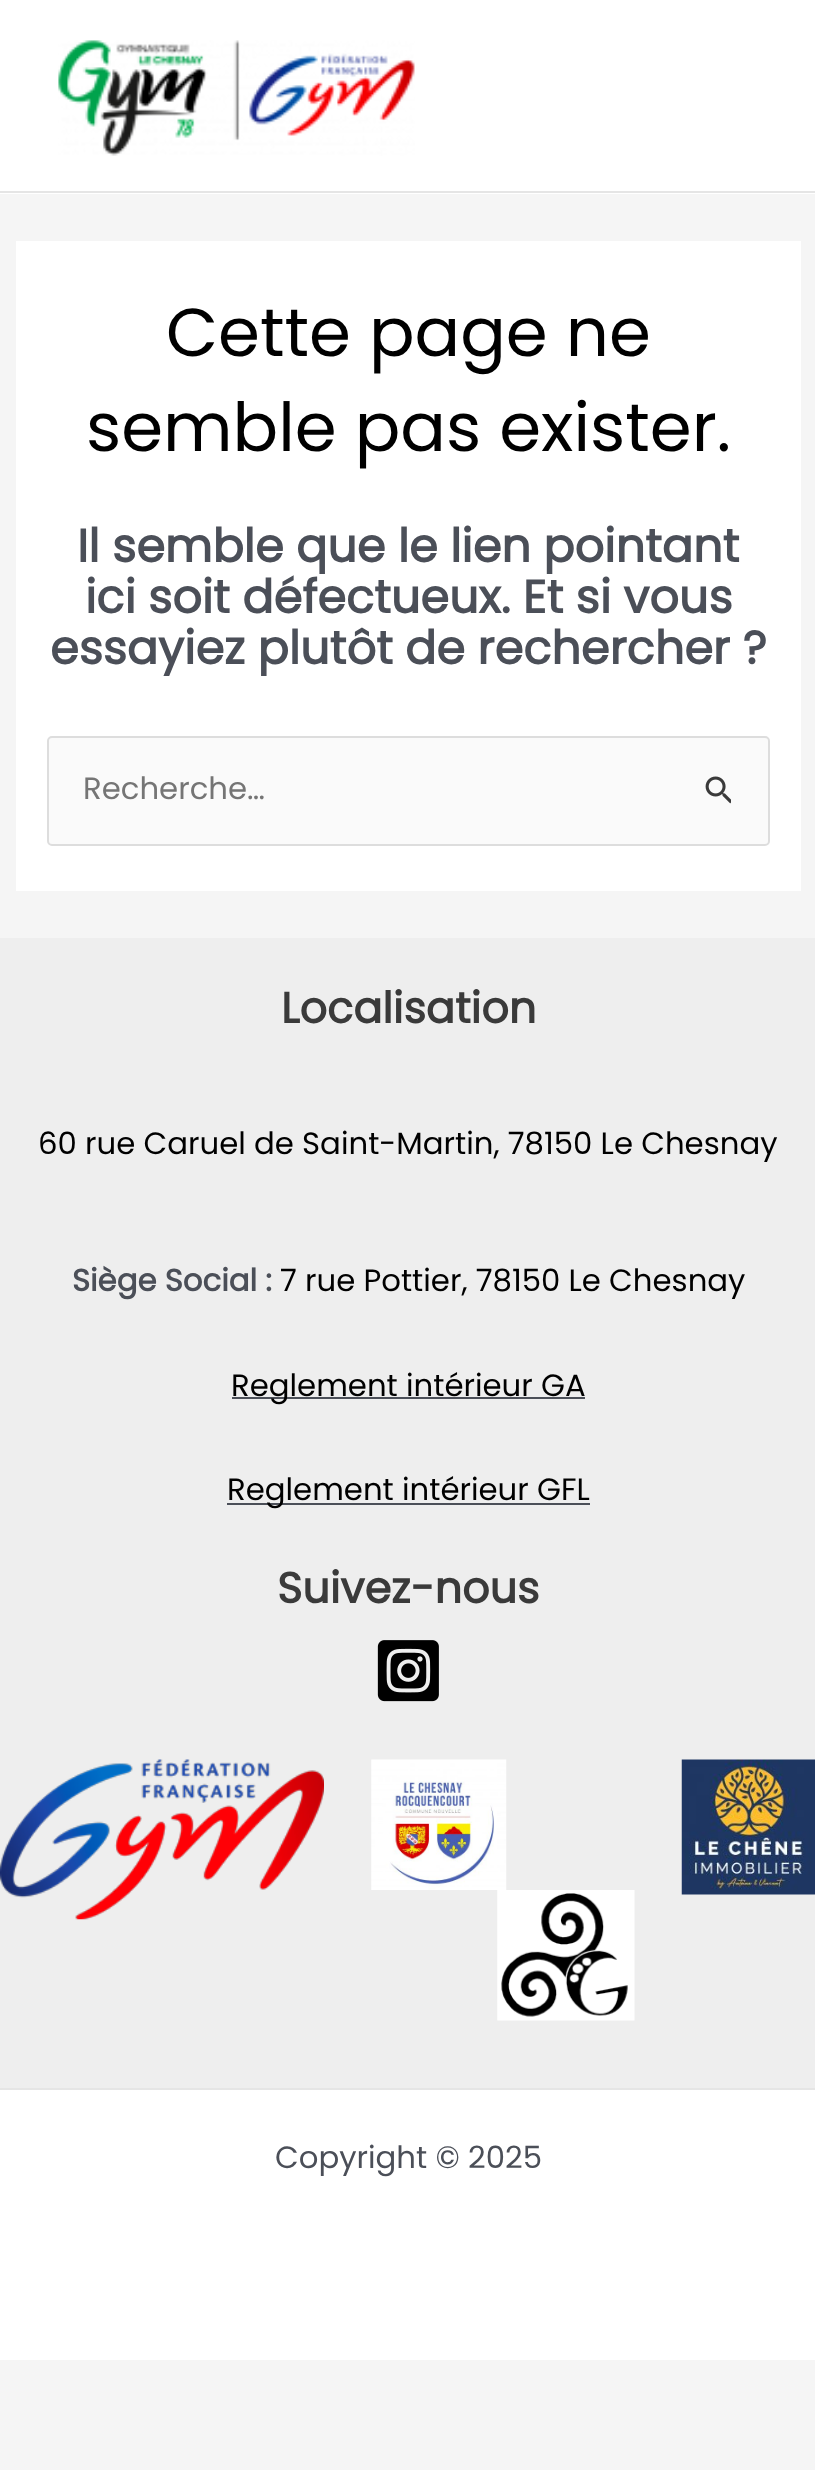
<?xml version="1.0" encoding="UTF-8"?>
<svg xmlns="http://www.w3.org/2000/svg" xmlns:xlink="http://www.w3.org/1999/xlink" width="815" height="2470">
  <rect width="100%" height="100%" fill="#f5f5f5" />
  <rect width="815" height="194" fill="#ffffff" />
  <rect y="191" width="815" height="2" fill="#e5e5e5" />
  <image x="58" y="40" width="357" height="116" xlink:href="image1.png" />
  <rect x="16" y="241" width="785" height="650" fill="#ffffff" />
  <rect x="48" y="737" width="721" height="108" rx="4" fill="#fafafa" stroke="#dddddd" stroke-width="2" />
  <image x="705" y="776" width="26" height="28" xlink:href="image2.png" />
  <rect y="938" width="815" height="1150" fill="#eeeeee" />
  <rect x="232" y="1397" width="353" height="2" fill="#4b4f58" />
  <rect x="227" y="1503" width="363" height="2" fill="#4b4f58" />
  <image x="377" y="1640" width="62" height="62" xlink:href="image3.png" />
  <image x="0" y="1759" width="324" height="161" xlink:href="image4.png" />
  <image x="371" y="1759" width="136" height="131" xlink:href="image5.png" />
  <image x="681" y="1759" width="134" height="136" xlink:href="image6.png" />
  <image x="497" y="1890" width="138" height="131" xlink:href="image7.png" />
  <rect y="2090" width="815" height="270" fill="#ffffff" />
  <rect y="2088" width="815" height="2" fill="#e5e5e5" />
  <text x="166" y="356" style="font-family: Poppins; font-size: 67.5px; fill: #000000">Cette page ne</text>
  <text x="86" y="451" style="font-family: Poppins; font-size: 67.5px; fill: #000000">semble pas exister.</text>
  <text x="77" y="562" style="font-family: Poppins; font-size: 46.2px; font-weight: bold; fill: #4b4f58">Il semble que le lien pointant</text>
  <text x="85" y="613" style="font-family: Poppins; font-size: 46.2px; font-weight: bold; fill: #4b4f58">ici soit défectueux. Et si vous</text>
  <text x="50" y="664" style="font-family: Poppins; font-size: 46.2px; font-weight: bold; fill: #4b4f58">essayiez plutôt de rechercher ?</text>
  <text x="83" y="799" style="font-family: Poppins; font-size: 30.75px; fill: #757575">Recherche…</text>
  <text x="281" y="1023" style="font-family: Poppins; font-size: 43px; font-weight: bold; fill: #3a3a3a">Localisation</text>
  <text x="38" y="1154" style="font-family: Poppins; font-size: 30.75px; fill: #000000">60 rue Caruel de Saint-Martin, 78150 Le Chesnay</text>
  <text x="72" y="1291" style="font-family: Poppins; font-size: 30.75px; font-weight: bold; fill: #4b4f58">Siège Social :</text>
  <text x="280" y="1291" style="font-family: Poppins; font-size: 30.75px; fill: #000000">7 rue Pottier, 78150 Le Chesnay</text>
  <text x="231" y="1396" style="font-family: Poppins; font-size: 30.75px; fill: #000000">Reglement intérieur GA</text>
  <text x="227" y="1500" style="font-family: Poppins; font-size: 30.75px; fill: #000000">Reglement intérieur GFL</text>
  <text x="277" y="1603" style="font-family: Poppins; font-size: 43px; font-weight: bold; fill: #3a3a3a">Suivez-nous</text>
  <text x="275" y="2168" style="font-family: Poppins; font-size: 30.75px; fill: #4b4f58">Copyright © 2025</text>
</svg>
